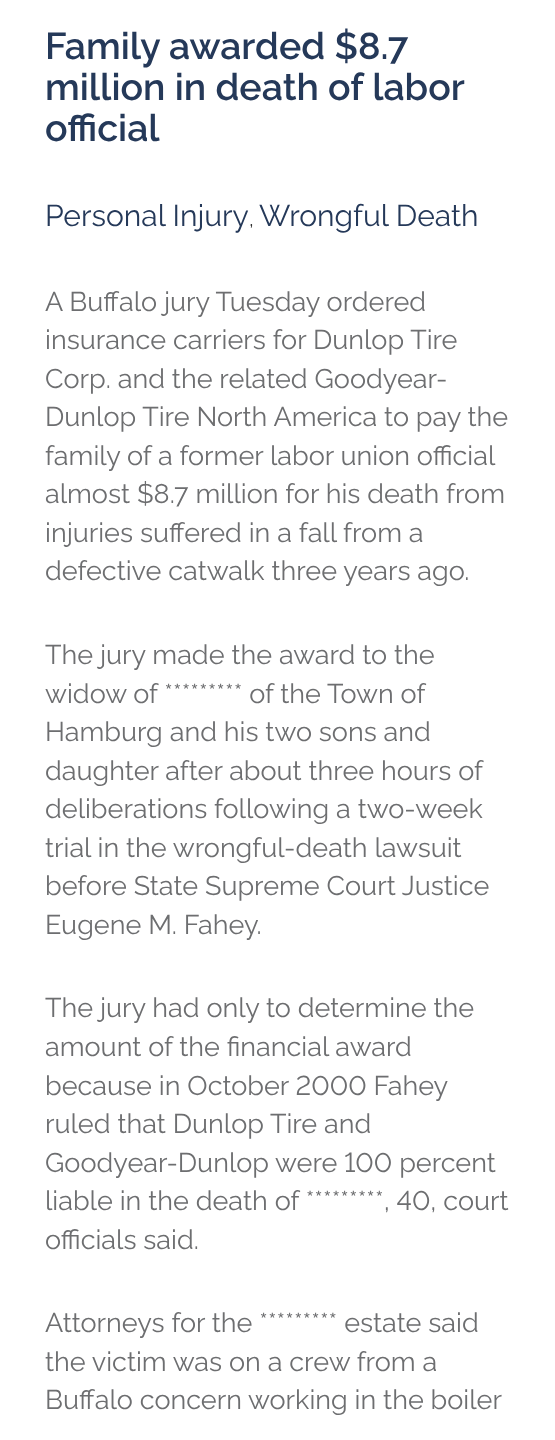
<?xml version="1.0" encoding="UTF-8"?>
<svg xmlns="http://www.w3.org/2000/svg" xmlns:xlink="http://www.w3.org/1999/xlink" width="555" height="1440">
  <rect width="100%" height="100%" fill="#ffffff" />
  <text x="45" y="59" style="font-family: Raleway; font-size: 37.5px; font-weight: 600; fill: #253959">Family awarded $8.7</text>
  <text x="45" y="100" style="font-family: Raleway; font-size: 37.5px; font-weight: 600; fill: #253959">million in death of labor</text>
  <text x="45" y="141" style="font-family: Raleway; font-size: 37.5px; font-weight: 600; fill: #253959">official</text>
  <text x="45" y="226" style="font-family: Raleway; font-size: 30px; fill: #253959">Personal Injury</text>
  <text x="249" y="226" style="font-family: Raleway; font-size: 21px; fill: #333333">,</text>
  <text x="259" y="226" style="font-family: Raleway; font-size: 30px; fill: #253959">Wrongful Death</text>
  <text x="45" y="311" style="font-family: Raleway; font-size: 27px; fill: #6d6e70">A Buffalo jury Tuesday ordered</text>
  <text x="45" y="349" style="font-family: Raleway; font-size: 27px; fill: #6d6e70">insurance carriers for Dunlop Tire</text>
  <text x="45" y="388" style="font-family: Raleway; font-size: 27px; fill: #6d6e70">Corp. and the related Goodyear-</text>
  <text x="45" y="426" style="font-family: Raleway; font-size: 27px; fill: #6d6e70">Dunlop Tire North America to pay the</text>
  <text x="45" y="465" style="font-family: Raleway; font-size: 27px; fill: #6d6e70">family of a former labor union official</text>
  <text x="45" y="503" style="font-family: Raleway; font-size: 27px; fill: #6d6e70">almost $8.7 million for his death from</text>
  <text x="45" y="542" style="font-family: Raleway; font-size: 27px; fill: #6d6e70">injuries suffered in a fall from a</text>
  <text x="45" y="580" style="font-family: Raleway; font-size: 27px; fill: #6d6e70">defective catwalk three years ago.</text>
  <text x="45" y="664" style="font-family: Raleway; font-size: 27px; fill: #6d6e70">The jury made the award to the</text>
  <text x="45" y="703" style="font-family: Raleway; font-size: 27px; fill: #6d6e70">widow of ********* of the Town of</text>
  <text x="45" y="741" style="font-family: Raleway; font-size: 27px; fill: #6d6e70">Hamburg and his two sons and</text>
  <text x="45" y="780" style="font-family: Raleway; font-size: 27px; fill: #6d6e70">daughter after about three hours of</text>
  <text x="45" y="818" style="font-family: Raleway; font-size: 27px; fill: #6d6e70">deliberations following a two-week</text>
  <text x="45" y="857" style="font-family: Raleway; font-size: 27px; fill: #6d6e70">trial in the wrongful-death lawsuit</text>
  <text x="45" y="895" style="font-family: Raleway; font-size: 27px; fill: #6d6e70">before State Supreme Court Justice</text>
  <text x="45" y="934" style="font-family: Raleway; font-size: 27px; fill: #6d6e70">Eugene M. Fahey.</text>
  <text x="45" y="1017" style="font-family: Raleway; font-size: 27px; fill: #6d6e70">The jury had only to determine the</text>
  <text x="45" y="1056" style="font-family: Raleway; font-size: 27px; fill: #6d6e70">amount of the financial award</text>
  <text x="45" y="1095" style="font-family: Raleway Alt; font-size: 27px; fill: #6d6e70">because in October 2000 Fahey</text>
  <text x="45" y="1133" style="font-family: Raleway; font-size: 27px; fill: #6d6e70">ruled that Dunlop Tire and</text>
  <text x="45" y="1172" style="font-family: Raleway Alt; font-size: 27px; fill: #6d6e70">Goodyear-Dunlop were 100 percent</text>
  <text x="45" y="1210" style="font-family: Raleway Alt; font-size: 27px; fill: #6d6e70">liable in the death of *********, 40, court</text>
  <text x="45" y="1249" style="font-family: Raleway; font-size: 27px; fill: #6d6e70">officials said.</text>
  <text x="45" y="1332" style="font-family: Raleway; font-size: 27px; fill: #6d6e70">Attorneys for the ********* estate said</text>
  <text x="45" y="1371" style="font-family: Raleway; font-size: 27px; fill: #6d6e70">the victim was on a crew from a</text>
  <text x="45" y="1409" style="font-family: Raleway; font-size: 27px; fill: #6d6e70">Buffalo concern working in the boiler</text>
</svg>
